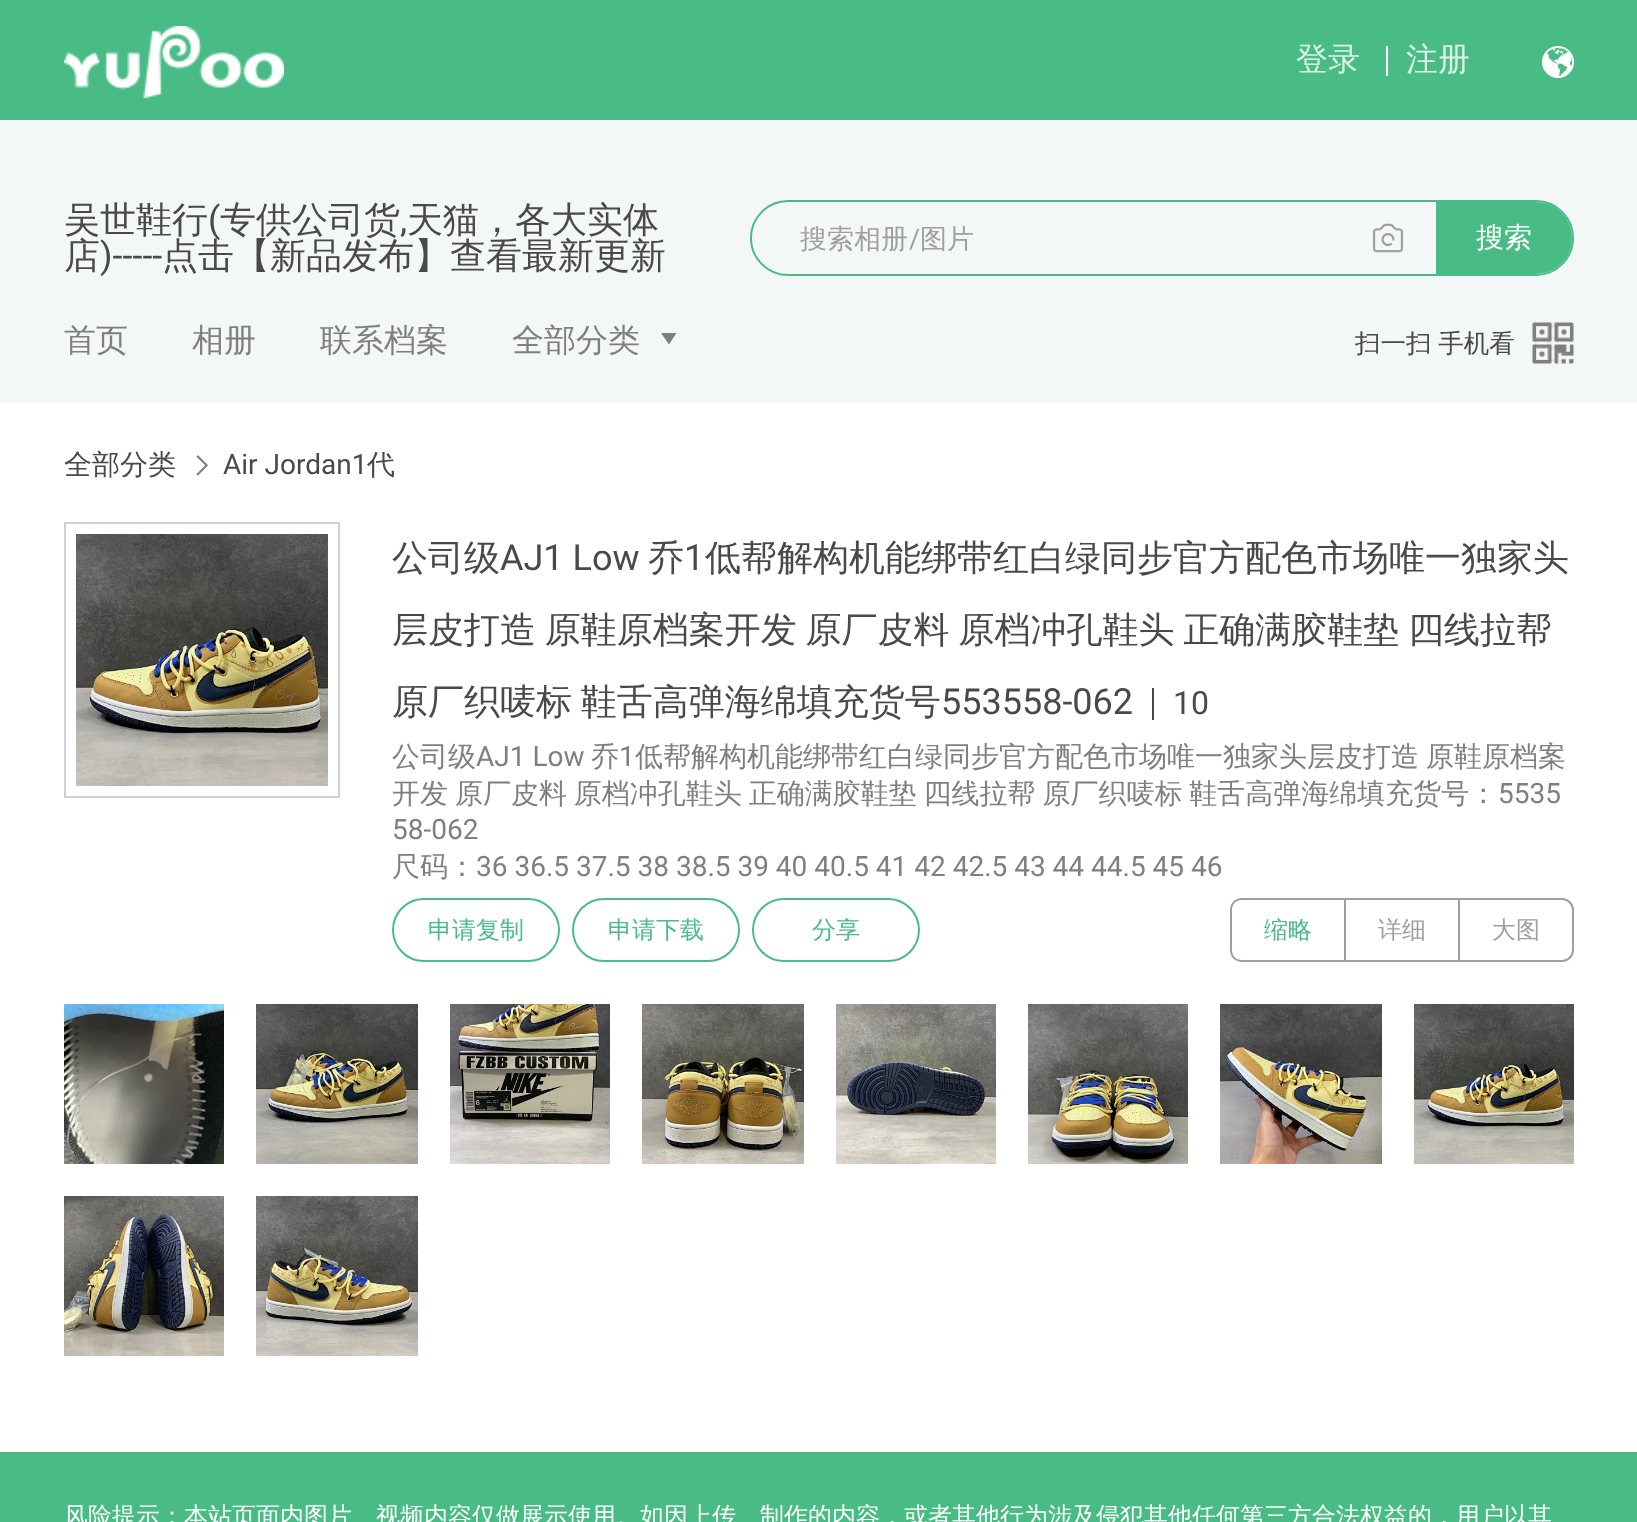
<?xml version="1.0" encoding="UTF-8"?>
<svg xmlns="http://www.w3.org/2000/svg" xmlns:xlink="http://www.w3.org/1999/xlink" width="1637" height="1522">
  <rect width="100%" height="100%" fill="#ffffff" />
  <rect width="1637" height="120" fill="#49bc85" />
  <image x="64" y="26" width="220" height="72" xlink:href="image1.png" />
  <rect x="1386" y="46" width="2" height="30" fill="#ffffff" />
  <image x="1542" y="46" width="32" height="32" xlink:href="image2.png" />
  <rect y="120" width="1637" height="282" fill="#f3f7f7" />
  <rect x="751" y="201" width="822" height="74" rx="37" fill="none" stroke="#49bc85" stroke-width="2" />
  <image x="1372" y="223" width="32" height="30" xlink:href="image3.png" />
  <path d="M 1437 203 h 99 c 19.5 0 35 15.5 35 35 c 0 19.5 -15.5 35 -35 35 h -99 z" fill="#49bc85" stroke="#49bc85" stroke-width="2" />
  <path d="M 669 344.5 l -8 -11.5 h 15.5 z" fill="#7f7f7f" />
  <image x="1532" y="322" width="42" height="42" xlink:href="image4.png" />
  <image x="196" y="455" width="12" height="21" xlink:href="image5.png" />
  <rect x="65" y="523" width="274" height="274" fill="none" stroke="#cfcfcf" stroke-width="2" />
  <image x="76" y="534" width="252" height="252" xlink:href="image6.png" />
  <rect x="1152" y="688" width="2" height="32" fill="#494949" />
  <rect x="393" y="899" width="166" height="62" rx="31" fill="none" stroke="#49bc85" stroke-width="2" />
  <rect x="573" y="899" width="166" height="62" rx="31" fill="none" stroke="#49bc85" stroke-width="2" />
  <rect x="753" y="899" width="166" height="62" rx="31" fill="none" stroke="#49bc85" stroke-width="2" />
  <path d="M 1242 898 h 102 v 64 h -102 c -7 0 -12 -5 -12 -12 v -40 c 0 -7 5 -12 12 -12 z m 0 2 h 102 v 60 h -102 c -6 0 -10 -4 -10 -10 v -40 c 0 -6 4 -10 10 -10 z" fill="#9f9f9f" fill-rule="evenodd" />
  <rect x="1344" y="898" width="114" height="2" fill="#9f9f9f" />
  <rect x="1344" y="960" width="114" height="2" fill="#9f9f9f" />
  <rect x="1344" y="898" width="2" height="64" fill="#9f9f9f" />
  <path d="M 1459 899 h 103 c 6 0 11 5 11 11 v 40 c 0 6 -5 11 -11 11 h -103 z" fill="none" stroke="#9f9f9f" stroke-width="2" />
  <image x="64" y="1004" width="160" height="160" xlink:href="image7.png" />
  <image x="256" y="1004" width="162" height="160" xlink:href="image8.png" />
  <image x="450" y="1004" width="160" height="160" xlink:href="image9.png" />
  <image x="642" y="1004" width="162" height="160" xlink:href="image10.png" />
  <image x="836" y="1004" width="160" height="160" xlink:href="image11.png" />
  <image x="1028" y="1004" width="160" height="160" xlink:href="image12.png" />
  <image x="1220" y="1004" width="162" height="160" xlink:href="image13.png" />
  <image x="1414" y="1004" width="160" height="160" xlink:href="image14.png" />
  <image x="64" y="1196" width="160" height="160" xlink:href="image15.png" />
  <image x="256" y="1196" width="162" height="160" xlink:href="image16.png" />
  <rect y="1452" width="1637" height="70" fill="#49bc85" />
  <text x="1296" y="70" style="font-family: WenQuanYi Zen Hei; font-size: 32px; font-weight: 500; fill: #dbf2e7">登录</text>
  <text x="1406" y="70" style="font-family: WenQuanYi Zen Hei; font-size: 32px; font-weight: 500; fill: #dbf2e7">注册</text>
  <text x="64" y="232" style="font-family: WenQuanYi Zen Hei; font-size: 36px; font-weight: 500; fill: #494949">吴世鞋行</text>
  <text x="208" y="232" style="font-family: Roboto; font-size: 36px; fill: #494949">(</text>
  <text x="220" y="232" style="font-family: WenQuanYi Zen Hei; font-size: 36px; font-weight: 500; fill: #494949">专供公司货</text>
  <text x="400" y="232" style="font-family: Roboto; font-size: 36px; fill: #494949">,</text>
  <text x="407" y="232" style="font-family: WenQuanYi Zen Hei; font-size: 36px; font-weight: 500; fill: #494949">天猫，各大实体</text>
  <text x="64" y="268" style="font-family: WenQuanYi Zen Hei; font-size: 36px; font-weight: 500; fill: #494949">店</text>
  <text x="100" y="268" style="font-family: Roboto; font-size: 36px; fill: #494949">)-----</text>
  <text x="162" y="268" style="font-family: WenQuanYi Zen Hei; font-size: 36px; font-weight: 500; fill: #494949">点击【新品发布】查看最新更新</text>
  <text x="800" y="248" style="font-family: WenQuanYi Zen Hei; font-size: 27px; font-weight: 500; fill: #9f9f9f">搜索相册</text>
  <text x="909" y="248" style="font-family: Roboto; font-size: 27px; fill: #9f9f9f">/</text>
  <text x="920" y="248" style="font-family: WenQuanYi Zen Hei; font-size: 27px; font-weight: 500; fill: #9f9f9f">图片</text>
  <text x="1476" y="247" style="font-family: Noto Sans; font-size: 28px; fill: #ffffff">搜</text>
  <text x="1504" y="247" style="font-family: WenQuanYi Zen Hei; font-size: 28px; font-weight: 500; fill: #ffffff">索</text>
  <text x="64" y="351" style="font-family: WenQuanYi Zen Hei; font-size: 32px; font-weight: 500; fill: #7f7f7f">首页</text>
  <text x="192" y="351" style="font-family: WenQuanYi Zen Hei; font-size: 32px; font-weight: 500; fill: #7f7f7f">相册</text>
  <text x="320" y="351" style="font-family: WenQuanYi Zen Hei; font-size: 32px; font-weight: 500; fill: #7f7f7f">联系档案</text>
  <text x="512" y="351" style="font-family: WenQuanYi Zen Hei; font-size: 32px; font-weight: 500; fill: #7f7f7f">全部分类</text>
  <text x="1355" y="352" word-spacing="-1" style="font-family: WenQuanYi Zen Hei; font-size: 25.5px; font-weight: 500; fill: #494949">扫一扫 手机看</text>
  <text x="64" y="474" style="font-family: WenQuanYi Zen Hei; font-size: 28px; font-weight: 500; fill: #494949">全部分类</text>
  <text x="223" y="474" style="font-family: Roboto; font-size: 28px; fill: #494949">Air Jordan1</text>
  <text x="367" y="474" style="font-family: WenQuanYi Zen Hei; font-size: 28px; font-weight: 500; fill: #494949">代</text>
  <text x="392" y="570" style="font-family: WenQuanYi Zen Hei; font-size: 36px; font-weight: 500; fill: #494949">公司级</text>
  <text x="500" y="570" style="font-family: Roboto; font-size: 36px; fill: #494949">AJ1 Low</text>
  <text x="648" y="570" style="font-family: WenQuanYi Zen Hei; font-size: 36px; font-weight: 500; fill: #494949">乔</text>
  <text x="684" y="570" style="font-family: Roboto; font-size: 36px; fill: #494949">1</text>
  <text x="705" y="570" style="font-family: WenQuanYi Zen Hei; font-size: 36px; font-weight: 500; fill: #494949">低帮解构机能绑带红白绿同步官方配色市场唯一独家头</text>
  <text x="392" y="642" word-spacing="-2" style="font-family: WenQuanYi Zen Hei; font-size: 36px; font-weight: 500; fill: #494949">层皮打造 原鞋原档案开发 原厂皮料 原档冲孔鞋头 正确满胶鞋垫 四线拉帮</text>
  <text x="392" y="714" word-spacing="-2" style="font-family: WenQuanYi Zen Hei; font-size: 36px; font-weight: 500; fill: #494949">原厂织唛标 鞋舌高弹海绵填充货号</text>
  <text x="941" y="714" style="font-family: Roboto; font-size: 36px; fill: #494949">553558-062</text>
  <text x="1173" y="714" style="font-family: Roboto; font-size: 32px; fill: #494949">10</text>
  <text x="392" y="766" style="font-family: WenQuanYi Zen Hei; font-size: 28px; font-weight: 500; fill: #7f7f7f">公司级</text>
  <text x="476" y="766" style="font-family: Roboto; font-size: 28px; fill: #7f7f7f">AJ1 Low</text>
  <text x="591" y="766" style="font-family: WenQuanYi Zen Hei; font-size: 28px; font-weight: 500; fill: #7f7f7f">乔</text>
  <text x="619" y="766" style="font-family: Roboto; font-size: 28px; fill: #7f7f7f">1</text>
  <text x="635" y="766" style="font-family: WenQuanYi Zen Hei; font-size: 28px; font-weight: 500; fill: #7f7f7f">低帮解构机能绑带红白绿同步官方配色市场唯一独家头层皮打造</text>
  <text x="1426" y="766" style="font-family: WenQuanYi Zen Hei; font-size: 28px; font-weight: 500; fill: #7f7f7f">原鞋原档案</text>
  <text x="392" y="803" word-spacing="-1.5" style="font-family: WenQuanYi Zen Hei; font-size: 28px; font-weight: 500; fill: #7f7f7f">开发 原厂皮料 原档冲孔鞋头 正确满胶鞋垫 四线拉帮 原厂织唛标 鞋舌高弹海绵填充货号：</text>
  <text x="1498" y="803" style="font-family: Roboto; font-size: 28px; fill: #7f7f7f">5535</text>
  <text x="392" y="839" style="font-family: Roboto; font-size: 28px; fill: #7f7f7f">58-062</text>
  <text x="392" y="876" style="font-family: WenQuanYi Zen Hei; font-size: 28px; font-weight: 500; fill: #7f7f7f">尺码：</text>
  <text x="476" y="876" style="font-family: Roboto; font-size: 28px; fill: #7f7f7f">36 36.5 37.5 38 38.5 39 40 40.5 41 42 42.5 43 44 44.5 45 46</text>
  <text x="428" y="938" style="font-family: WenQuanYi Zen Hei; font-size: 24px; font-weight: 500; fill: #49bc85">申请复制</text>
  <text x="608" y="938" style="font-family: WenQuanYi Zen Hei; font-size: 24px; font-weight: 500; fill: #49bc85">申请下载</text>
  <text x="812" y="938" style="font-family: WenQuanYi Zen Hei; font-size: 24px; font-weight: 500; fill: #49bc85">分享</text>
  <text x="1264" y="938" style="font-family: WenQuanYi Zen Hei; font-size: 24px; font-weight: 500; fill: #49bc85">缩略</text>
  <text x="1378" y="938" style="font-family: WenQuanYi Zen Hei; font-size: 24px; font-weight: 500; fill: #9f9f9f">详细</text>
  <text x="1492" y="938" style="font-family: WenQuanYi Zen Hei; font-size: 24px; font-weight: 500; fill: #9f9f9f">大图</text>
  <text x="64" y="1524" style="font-family: Noto Sans; font-size: 24px; fill: #ffffff">风</text>
  <text x="88" y="1524" style="font-family: WenQuanYi Zen Hei; font-size: 24px; font-weight: 500; fill: #ffffff">险提示：本站页面内图片、视频内容仅做展示使用。如因上传、制作的内容，或者其他行为涉及侵犯其他任何第三方合法权益的，用户以其</text>
</svg>
